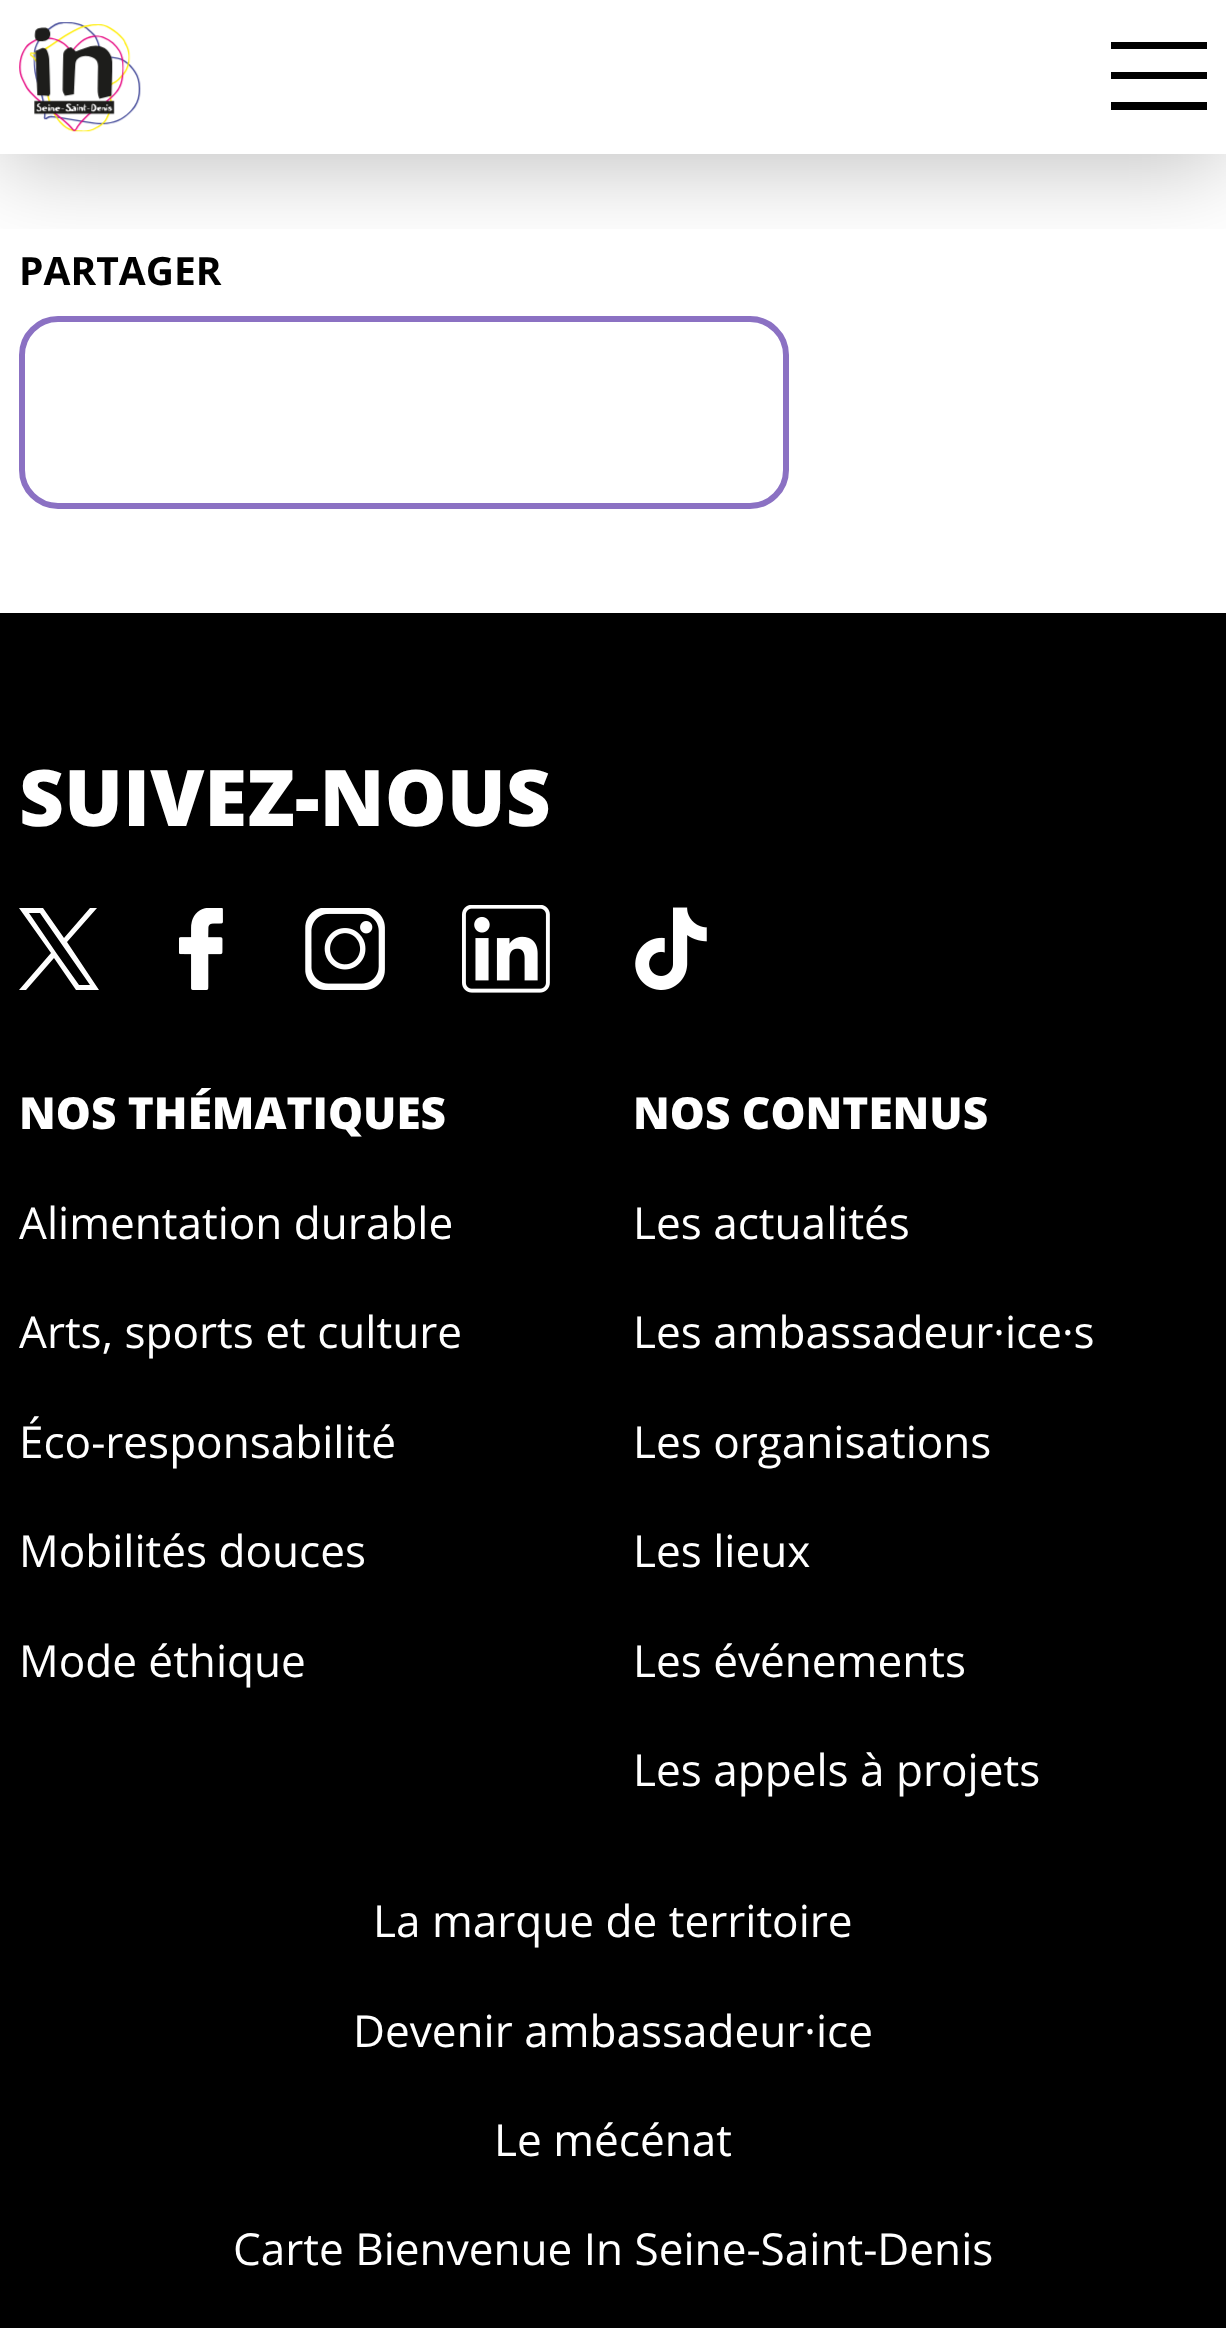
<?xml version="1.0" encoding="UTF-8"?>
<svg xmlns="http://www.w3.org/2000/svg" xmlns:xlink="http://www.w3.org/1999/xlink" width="1226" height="2328">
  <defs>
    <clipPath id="clip1"><rect x="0" y="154" width="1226" height="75" /></clipPath>
  </defs>
  <rect width="100%" height="100%" fill="#ffffff" />
  <g clip-path="url(#clip1)">
    <rect y="11" width="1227" height="154" fill="#000000" fill-opacity="0.25" filter="blur(45.5px)" />
  </g>
  <image x="19" y="22" width="122" height="111" xlink:href="image1.png" />
  <rect x="1111" y="42" width="96" height="7" fill="#000000" />
  <rect x="1111" y="72" width="96" height="7" fill="#000000" />
  <rect x="1111" y="102" width="96" height="8" fill="#000000" />
  <rect x="22" y="319" width="764" height="187" rx="36" fill="none" stroke="#8b71c3" stroke-width="6" />
  <rect y="613" width="1226" height="1715" fill="#000000" />
  <path d="M 67 942 l 30 -34 h -7 l -26 30 l -21 -30 h -24 l 32 45 l -32 37 h 7 l 28 -32 l 22 32 h 23 z m -10 12 l -28 -41 h 11 l 50 72 h -11 z" fill="#ffffff" />
  <image x="179" y="908" width="44" height="82" xlink:href="image2.png" />
  <image x="305" y="908" width="80" height="82" xlink:href="image3.png" />
  <image x="462" y="905" width="88" height="88" xlink:href="image4.png" />
  <image x="635" y="907" width="72" height="83" xlink:href="image5.png" />
  <text x="19" y="285" style="font-family: Open Sans; font-size: 39px; font-weight: bold; fill: #000000">PARTAGER</text>
  <text x="19" y="826" style="font-family: Open Sans; font-size: 78px; font-weight: 800; fill: #ffffff">SUIVEZ-NOUS</text>
  <text x="19" y="1129" style="font-family: Open Sans; font-size: 44.1px; font-weight: 800; fill: #ffffff">NOS THÉMATIQUES</text>
  <text x="19" y="1239" style="font-family: Open Sans; font-size: 44.1px; fill: #ffffff">Alimentation durable</text>
  <text x="19" y="1348" style="font-family: Open Sans; font-size: 44.1px; fill: #ffffff">Arts, sports et culture</text>
  <text x="19" y="1458" style="font-family: Open Sans; font-size: 44.1px; fill: #ffffff">Éco-responsabilité</text>
  <text x="19" y="1567" style="font-family: Open Sans; font-size: 44.1px; fill: #ffffff">Mobilités douces</text>
  <text x="19" y="1677" style="font-family: Open Sans; font-size: 44.1px; fill: #ffffff">Mode éthique</text>
  <text x="633" y="1129" style="font-family: Open Sans; font-size: 44.1px; font-weight: 800; fill: #ffffff">NOS CONTENUS</text>
  <text x="633" y="1239" style="font-family: Open Sans; font-size: 44.1px; fill: #ffffff">Les actualités</text>
  <text x="633" y="1348" style="font-family: Open Sans; font-size: 44.1px; fill: #ffffff">Les ambassadeur·ice·s</text>
  <text x="633" y="1458" style="font-family: Open Sans; font-size: 44.1px; fill: #ffffff">Les organisations</text>
  <text x="633" y="1567" style="font-family: Open Sans; font-size: 44.1px; fill: #ffffff">Les lieux</text>
  <text x="633" y="1677" style="font-family: Open Sans; font-size: 44.1px; fill: #ffffff">Les événements</text>
  <text x="633" y="1786" style="font-family: Open Sans; font-size: 44.1px; fill: #ffffff">Les appels à projets</text>
  <text x="373" y="1937" style="font-family: Open Sans; font-size: 44.1px; fill: #ffffff">La marque de territoire</text>
  <text x="353" y="2047" style="font-family: Open Sans; font-size: 44.1px; fill: #ffffff">Devenir ambassadeur·ice</text>
  <text x="494" y="2156" style="font-family: Open Sans; font-size: 44.1px; fill: #ffffff">Le mécénat</text>
  <text x="233" y="2265" style="font-family: Open Sans; font-size: 44.1px; fill: #ffffff">Carte Bienvenue In Seine-Saint-Denis</text>
</svg>
